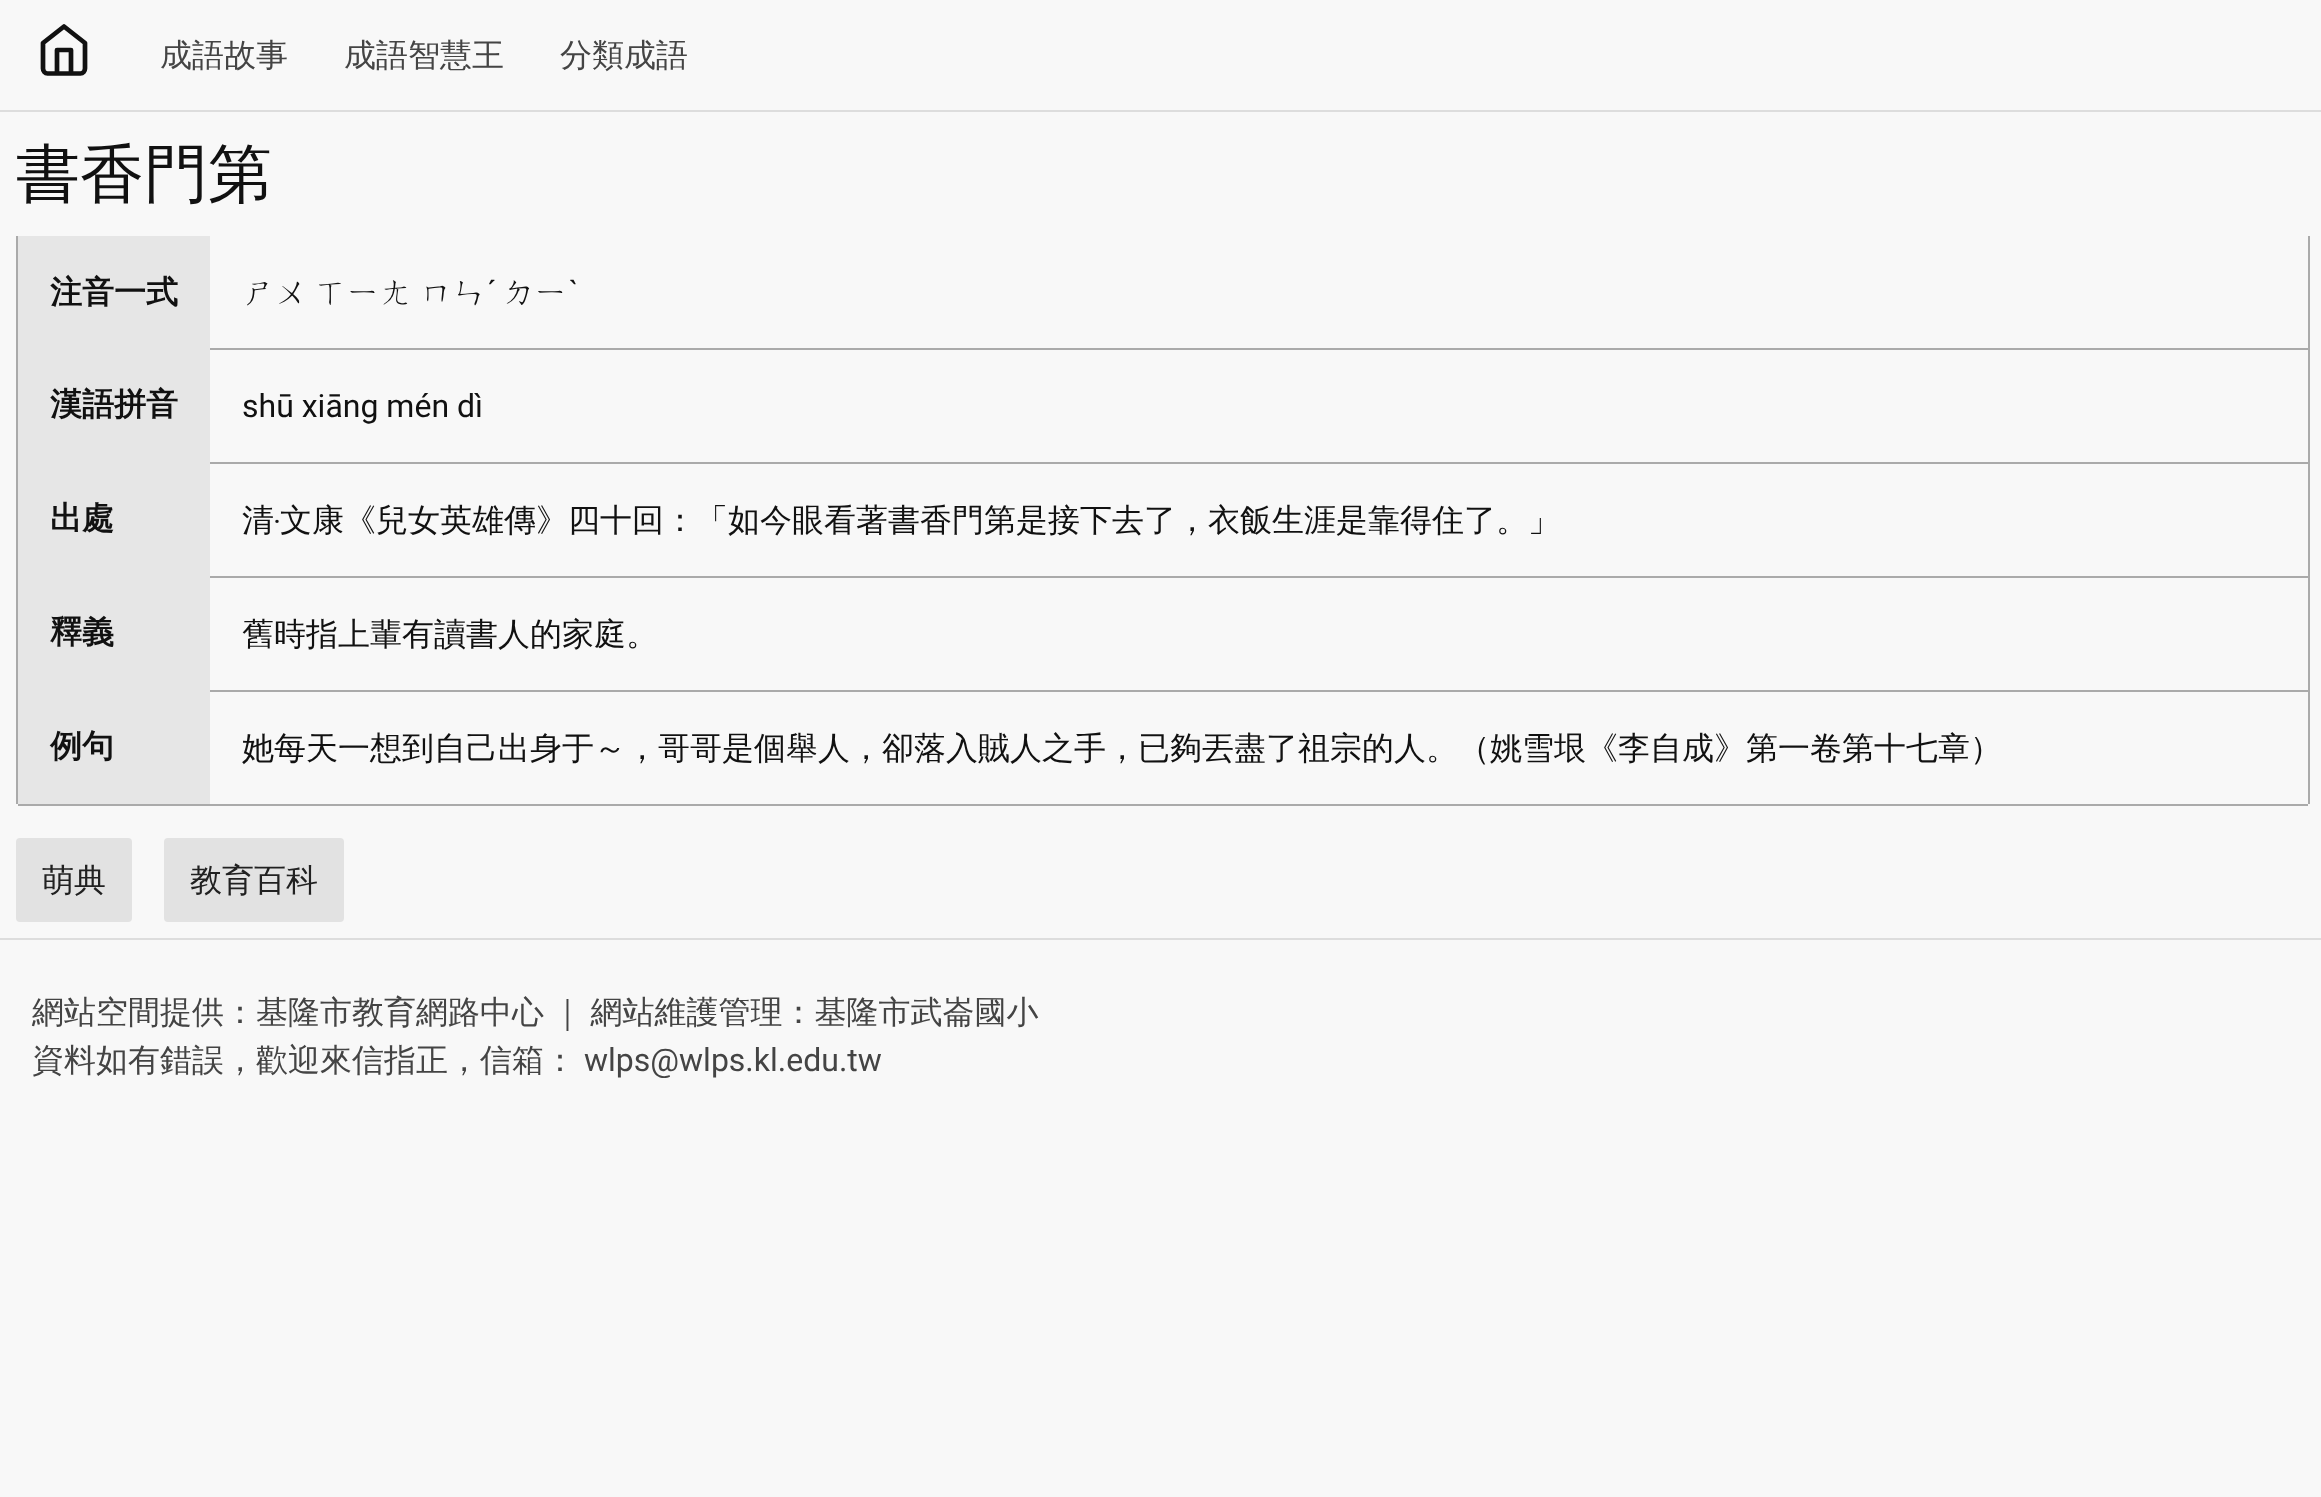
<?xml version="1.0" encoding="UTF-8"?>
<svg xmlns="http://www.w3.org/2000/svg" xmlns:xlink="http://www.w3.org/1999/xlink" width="2321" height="1497">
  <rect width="100%" height="100%" fill="#f8f8f8" />
  <rect y="110" width="2321" height="2" fill="#dddddd" />
  <path d="M 43 43 l 21 -16.5 l 21 16.5 v 25.5 c 0 2.5 -2 5 -4.5 5 h -33 c -2.5 0 -4.5 -2.5 -4.5 -5 z m 14 30.5 v -23.5 h 14 v 23.5" fill="none" stroke="#111111" stroke-width="4.7" stroke-linecap="round" stroke-linejoin="round" />
  <rect x="2308" y="236" width="2" height="568" fill="#aaaaaa" />
  <rect x="18" y="804" width="2290" height="2" fill="#aaaaaa" />
  <rect x="16" y="236" width="2" height="568" fill="#aaaaaa" />
  <rect x="18" y="236" width="192" height="568" fill="#e6e6e6" />
  <rect x="210" y="348" width="2098" height="2" fill="#aaaaaa" />
  <rect x="210" y="462" width="2098" height="2" fill="#aaaaaa" />
  <rect x="210" y="576" width="2098" height="2" fill="#aaaaaa" />
  <rect x="210" y="690" width="2098" height="2" fill="#aaaaaa" />
  <rect x="16" y="838" width="116" height="84" rx="4" fill="#e2e2e2" />
  <rect x="164" y="838" width="180" height="84" rx="4" fill="#e2e2e2" />
  <rect y="938" width="2321" height="2" fill="#dddddd" />
  <text x="160" y="66" style="font-family: WenQuanYi Zen Hei; font-size: 32px; font-weight: 500; fill: #444444">成語故事</text>
  <text x="344" y="66" style="font-family: WenQuanYi Zen Hei; font-size: 32px; font-weight: 500; fill: #444444">成語智慧王</text>
  <text x="560" y="66" style="font-family: WenQuanYi Zen Hei; font-size: 32px; font-weight: 500; fill: #444444">分類成語</text>
  <text x="16" y="196" style="font-family: WenQuanYi Zen Hei; font-size: 64px; font-weight: 500; fill: #111111">書香門第</text>
  <text x="50" y="303" style="font-family: WenQuanYi Zen Hei; font-size: 32px; font-weight: bold; fill: #111111">注音一式</text>
  <text x="242" y="303" word-spacing="-1" style="font-family: WenQuanYi Zen Hei; font-size: 32px; font-weight: 500; fill: #111111">ㄕㄨ ㄒㄧㄤ ㄇㄣ</text>
  <text x="486" y="303" style="font-family: Liberation Sans; font-size: 32px; fill: #111111">ˊ</text>
  <text x="503" y="303" style="font-family: WenQuanYi Zen Hei; font-size: 32px; font-weight: 500; fill: #111111">ㄉㄧ</text>
  <text x="568" y="303" style="font-family: Liberation Sans; font-size: 32px; fill: #111111">ˋ</text>
  <text x="50" y="415" style="font-family: WenQuanYi Zen Hei; font-size: 32px; font-weight: bold; fill: #111111">漢語拼音</text>
  <text x="242" y="417" style="font-family: Roboto; font-size: 32px; fill: #111111">shū xiāng mén dì</text>
  <text x="50" y="529" style="font-family: WenQuanYi Zen Hei; font-size: 32px; font-weight: bold; fill: #111111">出處</text>
  <text x="242" y="531" style="font-family: WenQuanYi Zen Hei; font-size: 32px; font-weight: 500; fill: #111111">清</text>
  <text x="274" y="531" style="font-family: Roboto; font-size: 32px; fill: #111111">‧</text>
  <text x="280" y="531" style="font-family: WenQuanYi Zen Hei; font-size: 32px; font-weight: 500; fill: #111111">文康《兒女英雄傳》四十回：「如今眼看著書香門第是接下去了，衣飯生涯是靠得住了。」</text>
  <text x="50" y="643" style="font-family: WenQuanYi Zen Hei; font-size: 32px; font-weight: bold; fill: #111111">釋義</text>
  <text x="242" y="645" style="font-family: WenQuanYi Zen Hei; font-size: 32px; font-weight: 500; fill: #111111">舊時指上輩有讀書人的家庭。</text>
  <text x="50" y="757" style="font-family: WenQuanYi Zen Hei; font-size: 32px; font-weight: bold; fill: #111111">例句</text>
  <text x="242" y="759" style="font-family: WenQuanYi Zen Hei; font-size: 32px; font-weight: 500; fill: #111111">她每天一想到自己出身于～，哥哥是個舉人，卻落入賊人之手，已夠丟盡了祖宗的人。（姚雪垠《李自成》第一卷第十七章）</text>
  <text x="42" y="891" style="font-family: WenQuanYi Zen Hei; font-size: 32px; font-weight: 500; fill: #212121">萌典</text>
  <text x="190" y="891" style="font-family: WenQuanYi Zen Hei; font-size: 32px; font-weight: 500; fill: #212121">教育百科</text>
  <text x="32" y="1023" word-spacing="-2" style="font-family: WenQuanYi Zen Hei; font-size: 32px; font-weight: 500; fill: #444444">網站空間提供：基隆市教育網路中心 ｜ 網站維護管理：基隆市武崙國小</text>
  <text x="32" y="1071" style="font-family: WenQuanYi Zen Hei; font-size: 32px; font-weight: 500; fill: #444444">資料如有錯誤，歡迎來信指正，信箱：</text>
  <text x="584" y="1071" style="font-family: Roboto; font-size: 32px; fill: #444444">wlps@wlps.kl.edu.tw</text>
</svg>
